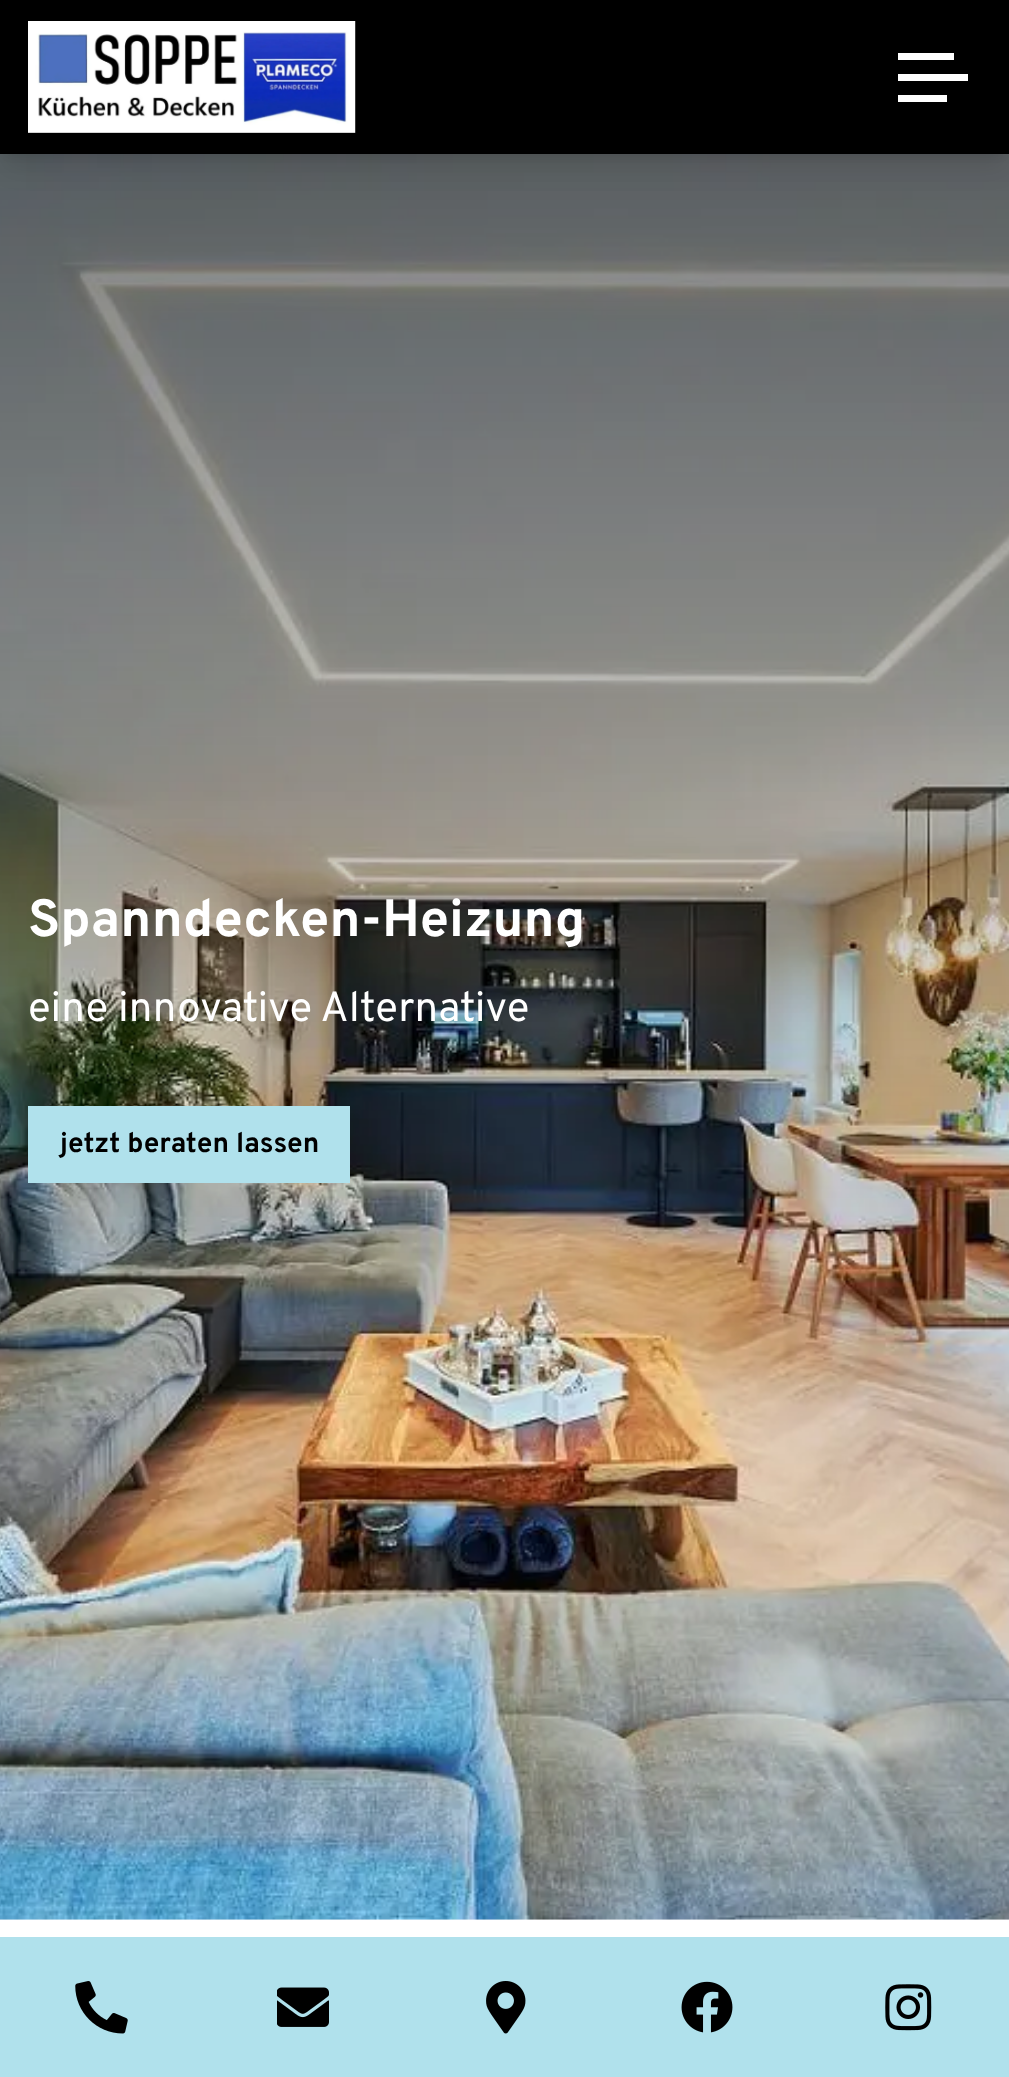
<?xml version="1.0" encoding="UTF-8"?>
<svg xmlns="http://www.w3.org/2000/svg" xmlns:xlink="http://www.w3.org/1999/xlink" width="1009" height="2077">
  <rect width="100%" height="100%" fill="#ffffff" />
  <image x="0" y="154" width="1009" height="1766" xlink:href="image2.png" />
  <rect x="7" y="14" width="996" height="140" fill="#000000" fill-opacity="0.1" filter="blur(5px)" />
  <rect x="5" y="23" width="1000" height="143" fill="#000000" fill-opacity="0.1" filter="blur(13px)" />
  <rect width="1009" height="154" fill="#000000" />
  <image x="28" y="21" width="328" height="112" xlink:href="image1.png" />
  <rect x="898" y="53" width="56" height="7" fill="#ffffff" />
  <rect x="898" y="74" width="70" height="7" fill="#ffffff" />
  <rect x="898" y="95" width="49" height="7" fill="#ffffff" />
  <rect x="28" y="1106" width="322" height="77" fill="#b0e1ec" />
  <rect y="1937" width="1009" height="140" fill="#b0e1ec" />
  <image x="75" y="1981" width="53" height="53" xlink:href="image3.png" />
  <image x="277" y="1987" width="52" height="40" xlink:href="image4.png" />
  <image x="486" y="1981" width="40" height="53" xlink:href="image5.png" />
  <image x="681" y="1981" width="52" height="52" xlink:href="image6.png" />
  <image x="885" y="1984" width="47" height="47" xlink:href="image7.png" />
  <text x="28" y="936" style="font-family: Overpass; font-size: 52.5px; font-weight: bold; fill: #ffffff">Spanndecken-Heizung</text>
  <text x="28" y="1021" style="font-family: Overpass; font-size: 42px; fill: #ffffff">eine innovative Alternative</text>
  <text x="60" y="1152" style="font-family: Overpass; font-size: 28px; font-weight: bold; fill: #000000">jetzt beraten lassen</text>
</svg>
